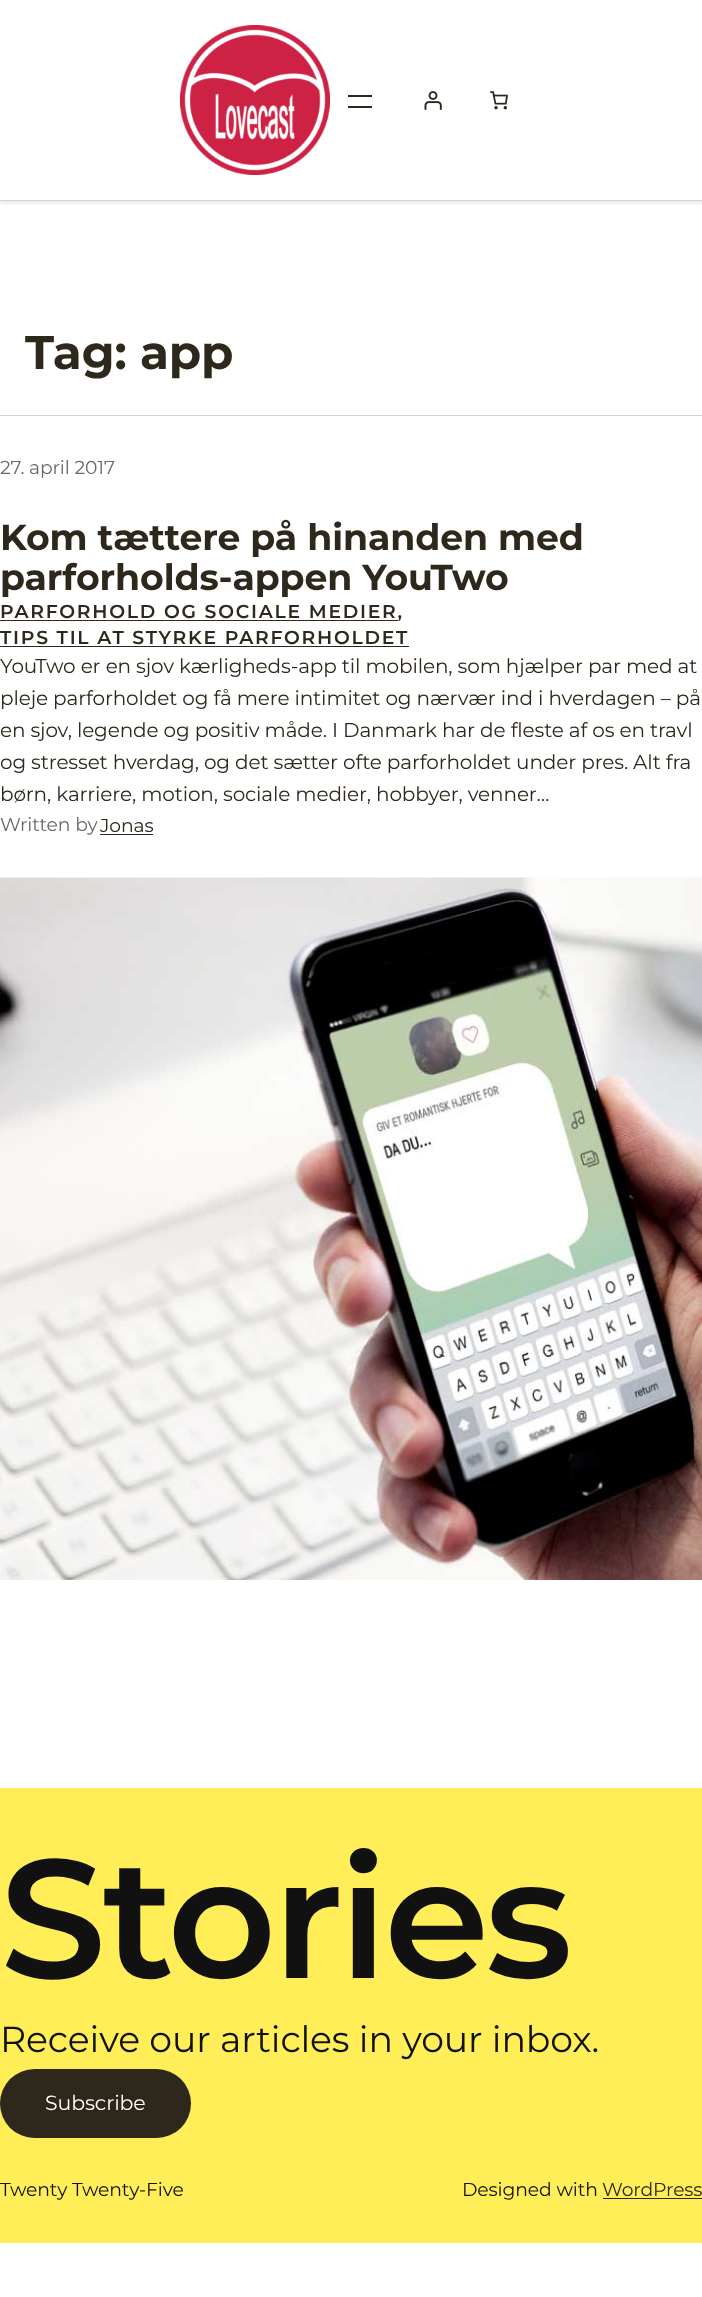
<?xml version="1.0" encoding="UTF-8"?>
<svg xmlns="http://www.w3.org/2000/svg" xmlns:xlink="http://www.w3.org/1999/xlink" width="702" height="2297">
  <defs>
    <clipPath id="clip1"><rect x="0" y="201" width="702" height="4" /></clipPath>
  </defs>
  <rect width="100%" height="100%" fill="#ffffff" />
  <g clip-path="url(#clip1)">
    <rect y="1" width="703" height="202" fill="#000000" fill-opacity="0.1" filter="blur(2.5px)" />
  </g>
  <rect y="200" width="702" height="1" fill="#d5d4d1" />
  <image x="180" y="25" width="150" height="150" xlink:href="image1.png" />
  <rect x="348" y="95" width="24" height="2" fill="#2d281b" />
  <rect x="348" y="106" width="24" height="2" fill="#2d281b" />
  <image x="424" y="91" width="18" height="19" xlink:href="image2.png" />
  <image x="490" y="91" width="18" height="19" xlink:href="image3.png" />
  <rect y="415" width="702" height="1" fill="#d5d4d1" />
  <rect y="620" width="398" height="1" fill="#2d281b" />
  <rect y="646" width="409" height="1" fill="#2d281b" />
  <rect x="100" y="834" width="53" height="1" fill="#2d281b" />
  <image x="0" y="877" width="702" height="703" xlink:href="image4.png" />
  <rect y="1788" width="702" height="455" fill="#ffee58" />
  <rect y="2069" width="191" height="69" rx="34.5" fill="#2d281b" />
  <rect x="603" y="2198" width="99" height="1" fill="#2d281b" />
  <text x="25" y="369" style="font-family: Montserrat; font-size: 47px; font-weight: bold; letter-spacing: -0.12px; fill: #2d281b">Tag: app</text>
  <text x="0" y="474" style="font-family: Montserrat; font-size: 18.75px; letter-spacing: -0.12px; fill: #686868">27. april 2017</text>
  <text x="0" y="550" style="font-family: Montserrat; font-size: 36.25px; font-weight: bold; letter-spacing: -0.12px; fill: #2d281b">Kom tættere på hinanden med</text>
  <text x="0" y="590" style="font-family: Montserrat; font-size: 36.25px; font-weight: bold; letter-spacing: -0.12px; fill: #2d281b">parforholds-appen YouTwo</text>
  <text x="0" y="618" style="font-family: Montserrat; font-size: 18.75px; font-weight: 600; letter-spacing: 1.75px; fill: #2d281b">PARFORHOLD OG SOCIALE MEDIER,</text>
  <text x="0" y="644" style="font-family: Montserrat; font-size: 18.75px; font-weight: 600; letter-spacing: 1.75px; fill: #2d281b">TIPS TIL AT STYRKE PARFORHOLDET</text>
  <text x="0" y="673" style="font-family: Montserrat; font-size: 20px; letter-spacing: -0.12px; fill: #2d281b">YouTwo er en sjov kærligheds-app til mobilen, som hjælper par med at</text>
  <text x="0" y="705" style="font-family: Montserrat; font-size: 20px; letter-spacing: -0.12px; fill: #2d281b">pleje parforholdet og få mere intimitet og nærvær ind i hverdagen – på</text>
  <text x="0" y="737" style="font-family: Montserrat; font-size: 20px; letter-spacing: -0.12px; fill: #2d281b">en sjov, legende og positiv måde. I Danmark har de fleste af os en travl</text>
  <text x="0" y="769" style="font-family: Montserrat; font-size: 20px; letter-spacing: -0.12px; fill: #2d281b">og stresset hverdag, og det sætter ofte parforholdet under pres. Alt fra</text>
  <text x="0" y="801" style="font-family: Montserrat; font-size: 20px; letter-spacing: -0.12px; fill: #2d281b">børn, karriere, motion, sociale medier, hobbyer, venner…</text>
  <text x="0" y="831" style="font-family: Montserrat; font-size: 18.75px; letter-spacing: -0.12px; fill: #686868">Written by</text>
  <text x="100" y="832" style="font-family: Montserrat; font-size: 18.75px; letter-spacing: -0.12px; fill: #2d281b">Jonas</text>
  <text x="0" y="1978" style="font-family: Montserrat; font-size: 168.5px; font-weight: 600; letter-spacing: -3.5px; fill: #111111">Stories</text>
  <text x="0" y="2052" style="font-family: Montserrat; font-size: 36.25px; letter-spacing: -0.12px; fill: #111111">Receive our articles in your inbox.</text>
  <text x="45" y="2110" style="font-family: Montserrat; font-size: 20.5px; letter-spacing: -0.12px; fill: #ffffff">Subscribe</text>
  <text x="0" y="2196" style="font-family: Montserrat; font-size: 18.75px; letter-spacing: -0.12px; fill: #111111">Twenty Twenty-Five</text>
  <text x="462" y="2196" style="font-family: Montserrat; font-size: 18.75px; letter-spacing: -0.12px; fill: #111111">Designed with</text>
  <text x="602" y="2196" style="font-family: Montserrat; font-size: 18.75px; letter-spacing: -0.12px; fill: #2d281b">WordPress</text>
</svg>
